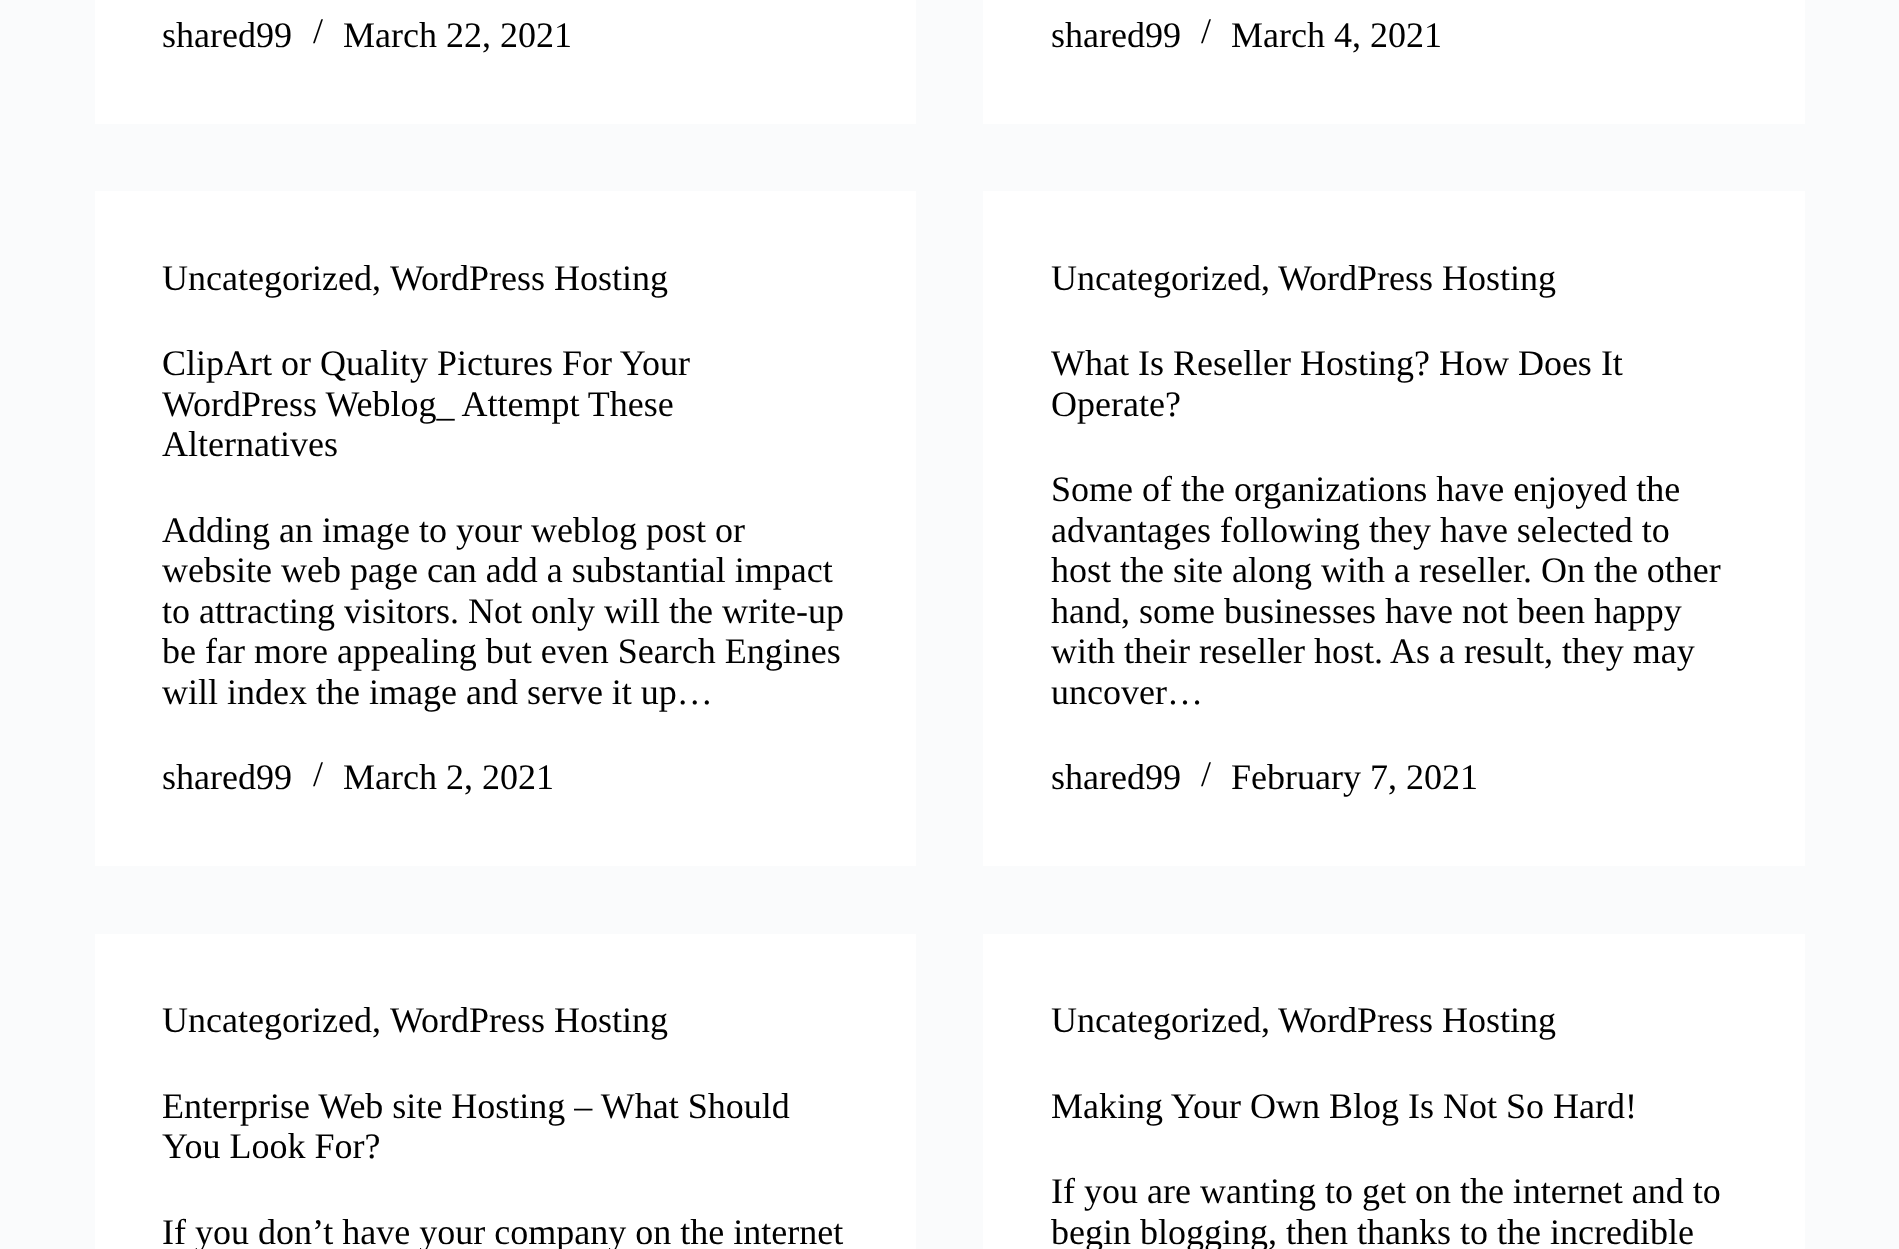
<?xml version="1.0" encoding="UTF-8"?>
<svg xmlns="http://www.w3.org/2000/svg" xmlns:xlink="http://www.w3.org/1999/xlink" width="1899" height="1249">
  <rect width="100%" height="100%" fill="#fafbfc" />
  <rect x="95" width="821" height="124" fill="#ffffff" />
  <rect x="983" width="822" height="124" fill="#ffffff" />
  <rect x="95" y="191" width="821" height="675" fill="#ffffff" />
  <rect x="983" y="191" width="822" height="675" fill="#ffffff" />
  <rect x="95" y="934" width="821" height="315" fill="#ffffff" />
  <rect x="983" y="934" width="822" height="315" fill="#ffffff" />
  <text x="162" y="47" style="font-family: Liberation Serif; font-size: 36px; fill: #000000">shared99</text>
  <text x="313" y="43" style="font-family: Liberation Serif; font-size: 36px; fill: #000000">/</text>
  <text x="343" y="47" style="font-family: Liberation Serif; font-size: 36px; fill: #000000">March 22, 2021</text>
  <text x="1051" y="47" style="font-family: Liberation Serif; font-size: 36px; fill: #000000">shared99</text>
  <text x="1201" y="43" style="font-family: Liberation Serif; font-size: 36px; fill: #000000">/</text>
  <text x="1231" y="47" style="font-family: Liberation Serif; font-size: 36px; fill: #000000">March 4, 2021</text>
  <text x="162" y="290" style="font-family: Liberation Serif; font-size: 36px; fill: #000000">Uncategorized,</text>
  <text x="390" y="290" style="font-family: Liberation Serif; font-size: 36px; fill: #000000">WordPress Hosting</text>
  <text x="162" y="375" style="font-family: Liberation Serif; font-size: 36px; fill: #000000">ClipArt or Quality Pictures For Your</text>
  <text x="162" y="416" style="font-family: Liberation Serif; font-size: 36px; fill: #000000">WordPress Weblog_ Attempt These</text>
  <text x="162" y="456" style="font-family: Liberation Serif; font-size: 36px; fill: #000000">Alternatives</text>
  <text x="162" y="542" style="font-family: Liberation Serif; font-size: 36px; fill: #000000">Adding an image to your weblog post or</text>
  <text x="162" y="582" style="font-family: Liberation Serif; font-size: 36px; fill: #000000">website web page can add a substantial impact</text>
  <text x="162" y="623" style="font-family: Liberation Serif; font-size: 36px; fill: #000000">to attracting visitors. Not only will the write-up</text>
  <text x="162" y="663" style="font-family: Liberation Serif; font-size: 36px; fill: #000000">be far more appealing but even Search Engines</text>
  <text x="162" y="704" style="font-family: Liberation Serif; font-size: 36px; fill: #000000">will index the image and serve it up…</text>
  <text x="162" y="789" style="font-family: Liberation Serif; font-size: 36px; fill: #000000">shared99</text>
  <text x="313" y="786" style="font-family: Liberation Serif; font-size: 36px; fill: #000000">/</text>
  <text x="343" y="789" style="font-family: Liberation Serif; font-size: 36px; fill: #000000">March 2, 2021</text>
  <text x="1051" y="290" style="font-family: Liberation Serif; font-size: 36px; fill: #000000">Uncategorized,</text>
  <text x="1278" y="290" style="font-family: Liberation Serif; font-size: 36px; fill: #000000">WordPress Hosting</text>
  <text x="1051" y="375" style="font-family: Liberation Serif; font-size: 36px; fill: #000000">What Is Reseller Hosting? How Does It</text>
  <text x="1051" y="416" style="font-family: Liberation Serif; font-size: 36px; fill: #000000">Operate?</text>
  <text x="1051" y="501" style="font-family: Liberation Serif; font-size: 36px; fill: #000000">Some of the organizations have enjoyed the</text>
  <text x="1051" y="542" style="font-family: Liberation Serif; font-size: 36px; fill: #000000">advantages following they have selected to</text>
  <text x="1051" y="582" style="font-family: Liberation Serif; font-size: 36px; fill: #000000">host the site along with a reseller. On the other</text>
  <text x="1051" y="623" style="font-family: Liberation Serif; font-size: 36px; fill: #000000">hand, some businesses have not been happy</text>
  <text x="1051" y="663" style="font-family: Liberation Serif; font-size: 36px; fill: #000000">with their reseller host. As a result, they may</text>
  <text x="1051" y="704" style="font-family: Liberation Serif; font-size: 36px; fill: #000000">uncover…</text>
  <text x="1051" y="789" style="font-family: Liberation Serif; font-size: 36px; fill: #000000">shared99</text>
  <text x="1201" y="786" style="font-family: Liberation Serif; font-size: 36px; fill: #000000">/</text>
  <text x="1231" y="789" style="font-family: Liberation Serif; font-size: 36px; fill: #000000">February 7, 2021</text>
  <text x="162" y="1032" style="font-family: Liberation Serif; font-size: 36px; fill: #000000">Uncategorized,</text>
  <text x="390" y="1032" style="font-family: Liberation Serif; font-size: 36px; fill: #000000">WordPress Hosting</text>
  <text x="162" y="1118" style="font-family: Liberation Serif; font-size: 36px; fill: #000000">Enterprise Web site Hosting – What Should</text>
  <text x="162" y="1158" style="font-family: Liberation Serif; font-size: 36px; fill: #000000">You Look For?</text>
  <text x="162" y="1244" style="font-family: Liberation Serif; font-size: 36px; fill: #000000">If you don’t have your company on the internet</text>
  <text x="1051" y="1032" style="font-family: Liberation Serif; font-size: 36px; fill: #000000">Uncategorized,</text>
  <text x="1278" y="1032" style="font-family: Liberation Serif; font-size: 36px; fill: #000000">WordPress Hosting</text>
  <text x="1051" y="1118" style="font-family: Liberation Serif; font-size: 36px; fill: #000000">Making Your Own Blog Is Not So Hard!</text>
  <text x="1051" y="1203" style="font-family: Liberation Serif; font-size: 36px; fill: #000000">If you are wanting to get on the internet and to</text>
  <text x="1051" y="1244" style="font-family: Liberation Serif; font-size: 36px; fill: #000000">begin blogging, then thanks to the incredible</text>
</svg>
